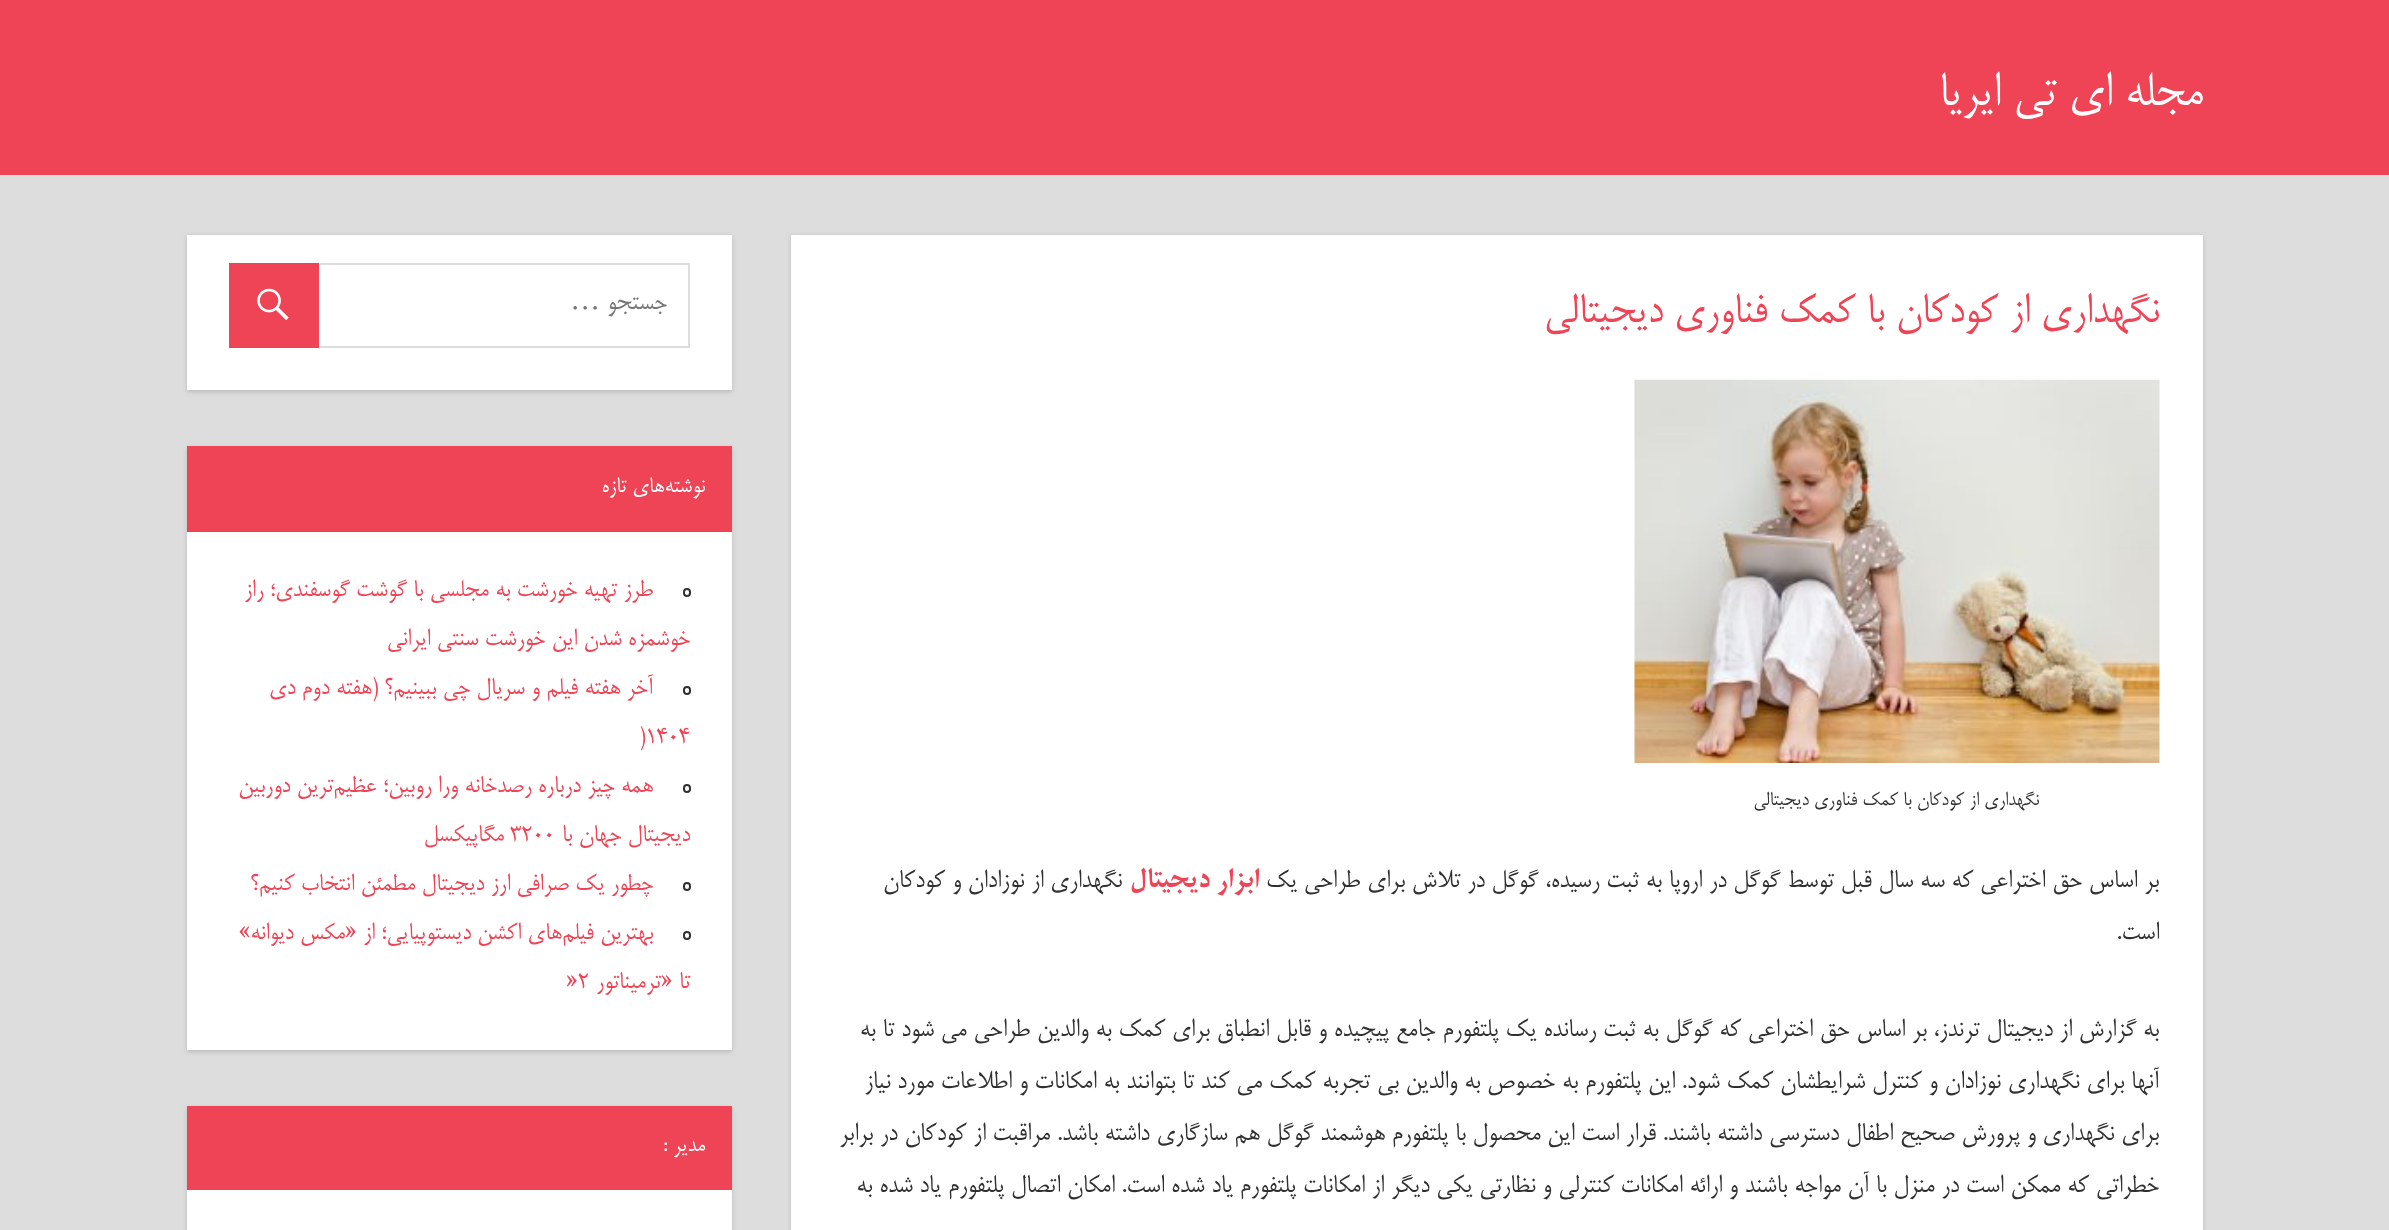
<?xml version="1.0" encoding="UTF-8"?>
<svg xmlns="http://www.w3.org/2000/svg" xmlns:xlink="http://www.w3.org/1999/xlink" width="2389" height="1230">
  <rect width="100%" height="100%" fill="#dddddd" />
  <rect width="2389" height="175" fill="#ee4455" />
  <rect x="791" y="236" width="1412" height="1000" fill="#bbbbbb" filter="blur(2px)" />
  <rect x="791" y="235" width="1412" height="995" fill="#ffffff" />
  <image x="1634" y="379" width="526" height="384" xlink:href="image1.png" />
  <rect x="187" y="236" width="545" height="156" fill="#bbbbbb" filter="blur(2px)" />
  <rect x="187" y="235" width="545" height="155" fill="#ffffff" />
  <rect x="230" y="264" width="459" height="83" fill="none" stroke="#dddddd" stroke-width="2" />
  <rect x="229" y="263" width="90" height="85" fill="#ee4455" />
  <image x="257" y="288" width="32" height="33" xlink:href="image2.png" />
  <rect x="187" y="448" width="545" height="604" fill="#bbbbbb" filter="blur(2px)" />
  <rect x="187" y="532" width="545" height="518" fill="#ffffff" />
  <rect x="187" y="446" width="545" height="86" fill="#ee4455" />
  <rect x="684" y="589" width="6" height="7" rx="3" fill="none" stroke="#303030" stroke-width="2" />
  <rect x="684" y="687" width="6" height="7" rx="3" fill="none" stroke="#303030" stroke-width="2" />
  <rect x="684" y="785" width="6" height="7" rx="3" fill="none" stroke="#303030" stroke-width="2" />
  <rect x="684" y="883" width="6" height="7" rx="3" fill="none" stroke="#303030" stroke-width="2" />
  <rect x="684" y="932" width="6" height="7" rx="3" fill="none" stroke="#303030" stroke-width="2" />
  <rect x="187" y="1108" width="545" height="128" fill="#bbbbbb" filter="blur(2px)" />
  <rect x="187" y="1190" width="545" height="40" fill="#ffffff" />
  <rect x="187" y="1106" width="545" height="84" fill="#ee4455" />
  <text x="2203" y="105" style="font-family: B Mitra; font-size: 56px; direction: rtl; fill: #ffffff">مجله ای تی ایریا</text>
  <text x="2159" y="322" style="font-family: B Mitra; font-size: 49px; direction: rtl; fill: #ee4455">نگهداری از کودکان با کمک فناوری دیجیتالی</text>
  <text x="2039" y="805" style="font-family: B Mitra; font-size: 22.75px; direction: rtl; fill: #303030">نگهداری از کودکان با کمک فناوری دیجیتالی</text>
  <text x="2159" y="887" style="font-family: B Mitra; font-size: 29.75px; direction: rtl; fill: #303030">بر اساس حق اختراعی که سه سال قبل توسط گوگل در اروپا به ثبت رسیده، گوگل در تلاش برای طراحی یک</text>
  <text x="1259" y="887" style="font-family: B Mitra; font-size: 29.75px; font-weight: bold; direction: rtl; fill: #ee4455">ابزار دیجیتال</text>
  <text x="1122" y="887" style="font-family: B Mitra; font-size: 29.75px; direction: rtl; fill: #303030">نگهداری از نوزادان و کودکان</text>
  <text x="2159" y="939" style="font-family: B Mitra; font-size: 29.75px; direction: rtl; fill: #303030">است.</text>
  <text x="2159" y="1036" style="font-family: B Mitra; font-size: 29.75px; direction: rtl; fill: #303030">به گزارش از دیجیتال ترندز، بر اساس حق اختراعی که گوگل به ثبت رسانده یک پلتفورم جامع پیچیده و قابل انطباق برای کمک به والدین طراحی می شود تا به</text>
  <text x="2159" y="1088" style="font-family: B Mitra; font-size: 29.75px; direction: rtl; fill: #303030">آنها برای نگهداری نوزادان و کنترل شرایطشان کمک شود. این پلتفورم به خصوص به والدین بی تجربه کمک می کند تا بتوانند به امکانات و اطلاعات مورد نیاز</text>
  <text x="2159" y="1140" style="font-family: B Mitra; font-size: 29.75px; direction: rtl; fill: #303030">برای نگهداری و پرورش صحیح اطفال دسترسی داشته باشند. قرار است این محصول با پلتفورم هوشمند گوگل هم سازگاری داشته باشد. مراقبت از کودکان در برابر</text>
  <text x="2159" y="1192" style="font-family: B Mitra; font-size: 29.75px; direction: rtl; fill: #303030">خطراتی که ممکن است در منزل با آن مواجه باشند و ارائه امکانات کنترلی و نظارتی یکی دیگر از امکانات پلتفورم یاد شده است. امکان اتصال پلتفورم یاد شده به</text>
  <text x="667" y="309" style="font-family: B Mitra; font-size: 29.75px; direction: rtl; fill: #757575">جستجو</text>
  <text x="600" y="309" style="font-family: Liberation Serif; font-size: 29.75px; direction: rtl; fill: #757575">…</text>
  <text x="705" y="492" style="font-family: B Mitra; font-size: 26px; direction: rtl; fill: #ffffff">نوشته‌های تازه</text>
  <text x="653" y="596" style="font-family: B Mitra; font-size: 28px; direction: rtl; fill: #ee4455">طرز تهیه خورشت به مجلسی با گوشت گوسفندی؛ راز</text>
  <text x="690" y="645" style="font-family: B Mitra; font-size: 28px; direction: rtl; fill: #ee4455">خوشمزه شدن این خورشت سنتی ایرانی</text>
  <text x="653" y="694" style="font-family: B Mitra; font-size: 28px; direction: rtl; fill: #ee4455">آخر هفته فیلم و سریال چی ببینیم؟ (هفته دوم دی</text>
  <text x="639" y="743" style="font-family: B Mitra; font-size: 28px; fill: #ee4455">)۱۴۰۴</text>
  <text x="653" y="792" style="font-family: B Mitra; font-size: 28px; direction: rtl; fill: #ee4455">همه چیز درباره رصدخانه ورا روبین؛ عظیم‌ترین دوربین</text>
  <text x="690" y="841" style="font-family: B Mitra; font-size: 28px; direction: rtl; fill: #ee4455">دیجیتال جهان با</text>
  <text x="510" y="841" style="font-family: B Mitra; font-size: 28px; fill: #ee4455">۳۲۰۰</text>
  <text x="504" y="841" style="font-family: B Mitra; font-size: 28px; direction: rtl; fill: #ee4455">مگاپیکسل</text>
  <text x="653" y="890" style="font-family: B Mitra; font-size: 28px; direction: rtl; fill: #ee4455">چطور یک صرافی ارز دیجیتال مطمئن انتخاب کنیم؟</text>
  <text x="653" y="939" style="font-family: B Mitra; font-size: 28px; direction: rtl; fill: #ee4455">بهترین فیلم‌های اکشن دیستوپیایی؛ از «مکس دیوانه»</text>
  <text x="690" y="988" style="font-family: B Mitra; font-size: 28px; direction: rtl; fill: #ee4455">تا «ترمیناتور</text>
  <text x="566" y="988" style="font-family: B Mitra; font-size: 28px; fill: #ee4455">»۲</text>
  <text x="705" y="1151" style="font-family: B Mitra; font-size: 26px; direction: rtl; fill: #ffffff">مدیر :</text>
</svg>
